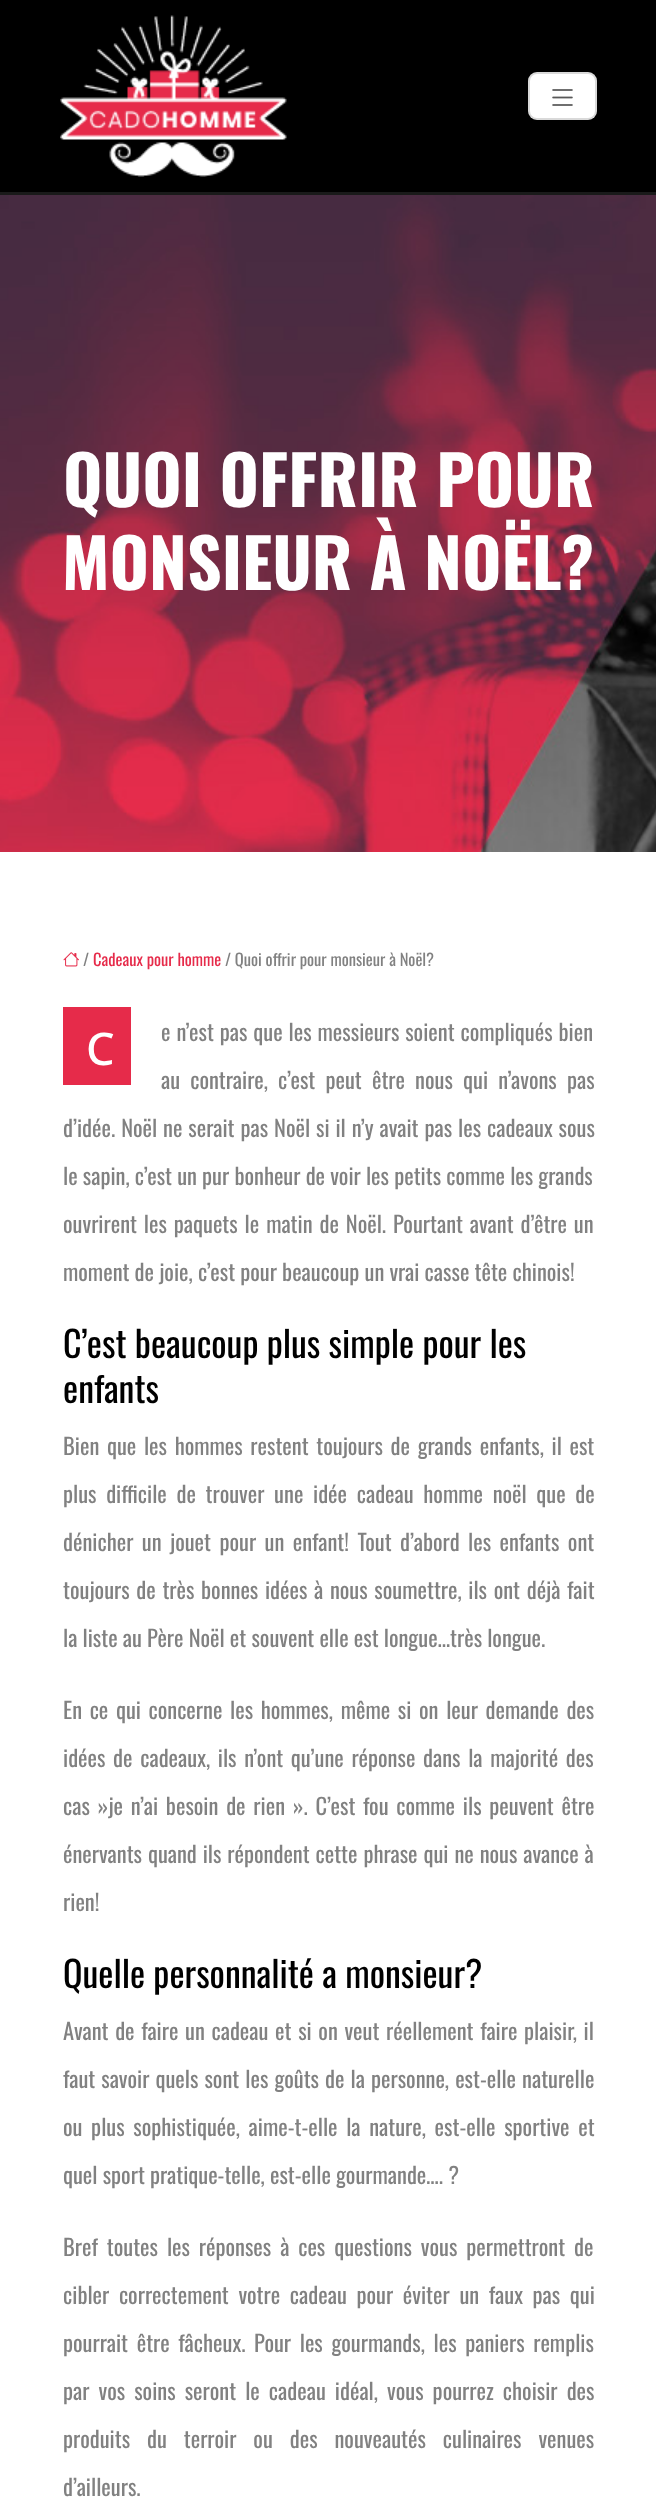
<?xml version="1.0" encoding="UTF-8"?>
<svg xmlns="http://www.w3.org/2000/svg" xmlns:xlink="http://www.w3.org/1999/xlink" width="656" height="2506">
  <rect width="100%" height="100%" fill="#ffffff" />
  <rect width="656" height="192" fill="#000000" />
  <rect y="192" width="656" height="3" fill="#1a1a1a" />
  <image x="60" y="15" width="227" height="162" xlink:href="image1.png" />
  <rect x="528" y="72" width="69" height="48" rx="9" fill="#ffffff" />
  <rect x="529" y="73" width="67" height="46" rx="8" fill="none" stroke="#000000" stroke-opacity="0.15" stroke-width="2" />
  <image x="552" y="89" width="21" height="17" xlink:href="image2.png" />
  <image x="0" y="195" width="656" height="657" xlink:href="image3.png" />
  <image x="63" y="952" width="16" height="15" xlink:href="image4.png" />
  <rect x="63" y="1007" width="68" height="78" fill="#e62b4a" />
  <text x="63" y="507" style="font-family: Oswald; font-size: 67.5px; font-weight: bold; fill: #ffffff">QUOI OFFRIR POUR</text>
  <text x="62" y="590" style="font-family: Oswald; font-size: 67.5px; font-weight: bold; fill: #ffffff">MONSIEUR À NOËL?</text>
  <text x="83" y="966" style="font-family: Oswald; font-size: 16.5px; fill: #818181">/</text>
  <text x="93" y="966" style="font-family: Oswald; font-size: 16.5px; fill: #e62b4a">Cadeaux pour homme</text>
  <text x="225" y="966" style="font-family: Oswald; font-size: 16.5px; fill: #818181">/ Quoi offrir pour monsieur à Noël?</text>
  <text x="86" y="1065" style="font-family: Noto Sans; font-size: 45px; font-weight: 500; fill: #ffffff">C</text>
  <text x="161" y="1041" word-spacing="0.75" style="font-family: Oswald; font-size: 22.5px; fill: #818181">e n’est pas que les messieurs soient compliqués bien</text>
  <text x="161" y="1089" word-spacing="5" style="font-family: Oswald; font-size: 22.5px; fill: #818181">au contraire, c’est peut être nous qui n’avons pas</text>
  <text x="63" y="1137" word-spacing="0.75" style="font-family: Oswald; font-size: 22.5px; fill: #818181">d’idée. Noël ne serait pas Noël si il n’y avait pas les cadeaux sous</text>
  <text x="63" y="1185" style="font-family: Oswald; font-size: 22.5px; fill: #818181">le sapin, c’est un pur bonheur de voir les petits comme les grands</text>
  <text x="63" y="1233" word-spacing="1.75" style="font-family: Oswald; font-size: 22.5px; fill: #818181">ouvrirent les paquets le matin de Noël. Pourtant avant d’être un</text>
  <text x="63" y="1281" style="font-family: Oswald; font-size: 22.5px; fill: #818181">moment de joie, c’est pour beaucoup un vrai casse tête chinois!</text>
  <text x="63" y="1358" style="font-family: Oswald; font-size: 36px; fill: #000000">C’est beaucoup plus simple pour les</text>
  <text x="63" y="1403" style="font-family: Oswald; font-size: 36px; fill: #000000">enfants</text>
  <text x="63" y="1455" word-spacing="2.5" style="font-family: Oswald; font-size: 22.5px; fill: #818181">Bien que les hommes restent toujours de grands enfants, il est</text>
  <text x="63" y="1503" word-spacing="4.5" style="font-family: Oswald; font-size: 22.5px; fill: #818181">plus difficile de trouver une idée cadeau homme noël que de</text>
  <text x="63" y="1551" word-spacing="3.25" style="font-family: Oswald; font-size: 22.5px; fill: #818181">dénicher un jouet pour un enfant! Tout d’abord les enfants ont</text>
  <text x="63" y="1599" word-spacing="1.5" style="font-family: Oswald; font-size: 22.5px; fill: #818181">toujours de très bonnes idées à nous soumettre, ils ont déjà fait</text>
  <text x="63" y="1647" style="font-family: Oswald; font-size: 22.5px; fill: #818181">la liste au Père Noël et souvent elle est longue…très longue.</text>
  <text x="63" y="1719" word-spacing="2.5" style="font-family: Oswald; font-size: 22.5px; fill: #818181">En ce qui concerne les hommes, même si on leur demande des</text>
  <text x="63" y="1767" word-spacing="2.5" style="font-family: Oswald; font-size: 22.5px; fill: #818181">idées de cadeaux, ils n’ont qu’une réponse dans la majorité des</text>
  <text x="63" y="1815" word-spacing="2.6" style="font-family: Oswald; font-size: 22.5px; fill: #818181">cas »je n’ai besoin de rien ». C’est fou comme ils peuvent être</text>
  <text x="63" y="1863" word-spacing="0.75" style="font-family: Oswald; font-size: 22.5px; fill: #818181">énervants quand ils répondent cette phrase qui ne nous avance à</text>
  <text x="63" y="1911" style="font-family: Oswald; font-size: 22.5px; fill: #818181">rien!</text>
  <text x="63" y="1988" style="font-family: Oswald; font-size: 36px; fill: #000000">Quelle personnalité a monsieur?</text>
  <text x="63" y="2040" word-spacing="1.5" style="font-family: Oswald; font-size: 22.5px; fill: #818181">Avant de faire un cadeau et si on veut réellement faire plaisir, il</text>
  <text x="63" y="2088" word-spacing="0.9" style="font-family: Oswald; font-size: 22.5px; fill: #818181">faut savoir quels sont les goûts de la personne, est-elle naturelle</text>
  <text x="63" y="2136" word-spacing="3.5" style="font-family: Oswald; font-size: 22.5px; fill: #818181">ou plus sophistiquée, aime-t-elle la nature, est-elle sportive et</text>
  <text x="63" y="2184" style="font-family: Oswald; font-size: 22.5px; fill: #818181">quel sport pratique-telle, est-elle gourmande…. ?</text>
  <text x="63" y="2256" word-spacing="3.75" style="font-family: Oswald; font-size: 22.5px; fill: #818181">Bref toutes les réponses à ces questions vous permettront de</text>
  <text x="63" y="2304" word-spacing="4.5" style="font-family: Oswald; font-size: 22.5px; fill: #818181">cibler correctement votre cadeau pour éviter un faux pas qui</text>
  <text x="63" y="2352" word-spacing="3.5" style="font-family: Oswald; font-size: 22.5px; fill: #818181">pourrait être fâcheux. Pour les gourmands, les paniers remplis</text>
  <text x="63" y="2400" word-spacing="3.9" style="font-family: Oswald; font-size: 22.5px; fill: #818181">par vos soins seront le cadeau idéal, vous pourrez choisir des</text>
  <text x="63" y="2448" word-spacing="11.75" style="font-family: Oswald; font-size: 22.5px; fill: #818181">produits du terroir ou des nouveautés culinaires venues</text>
  <text x="63" y="2496" style="font-family: Oswald; font-size: 22.5px; fill: #818181">d’ailleurs.</text>
</svg>
